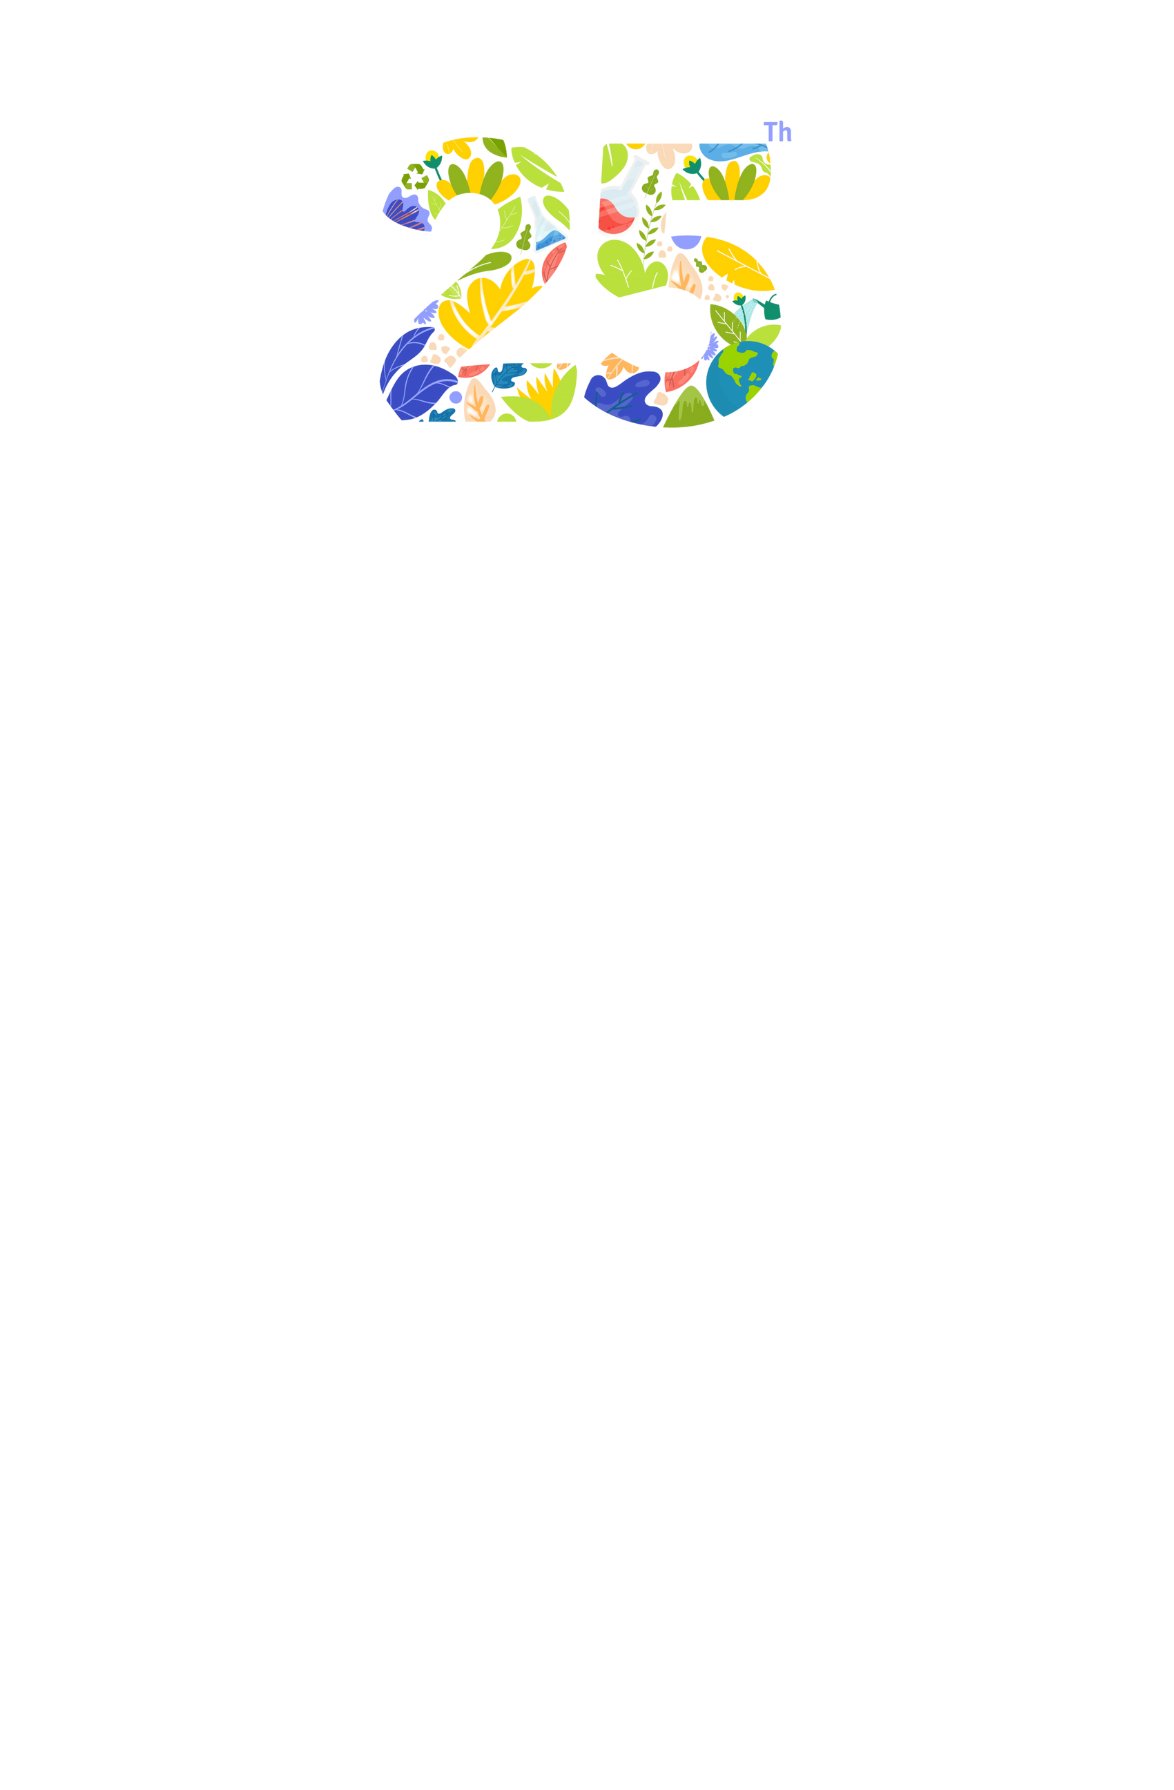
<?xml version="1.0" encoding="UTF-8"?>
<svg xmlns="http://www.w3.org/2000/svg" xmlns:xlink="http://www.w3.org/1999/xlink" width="1174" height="1790">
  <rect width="100%" height="100%" fill="#ffffff" />
  <image x="379" y="120" width="413" height="308" xlink:href="image1.png" />
</svg>
